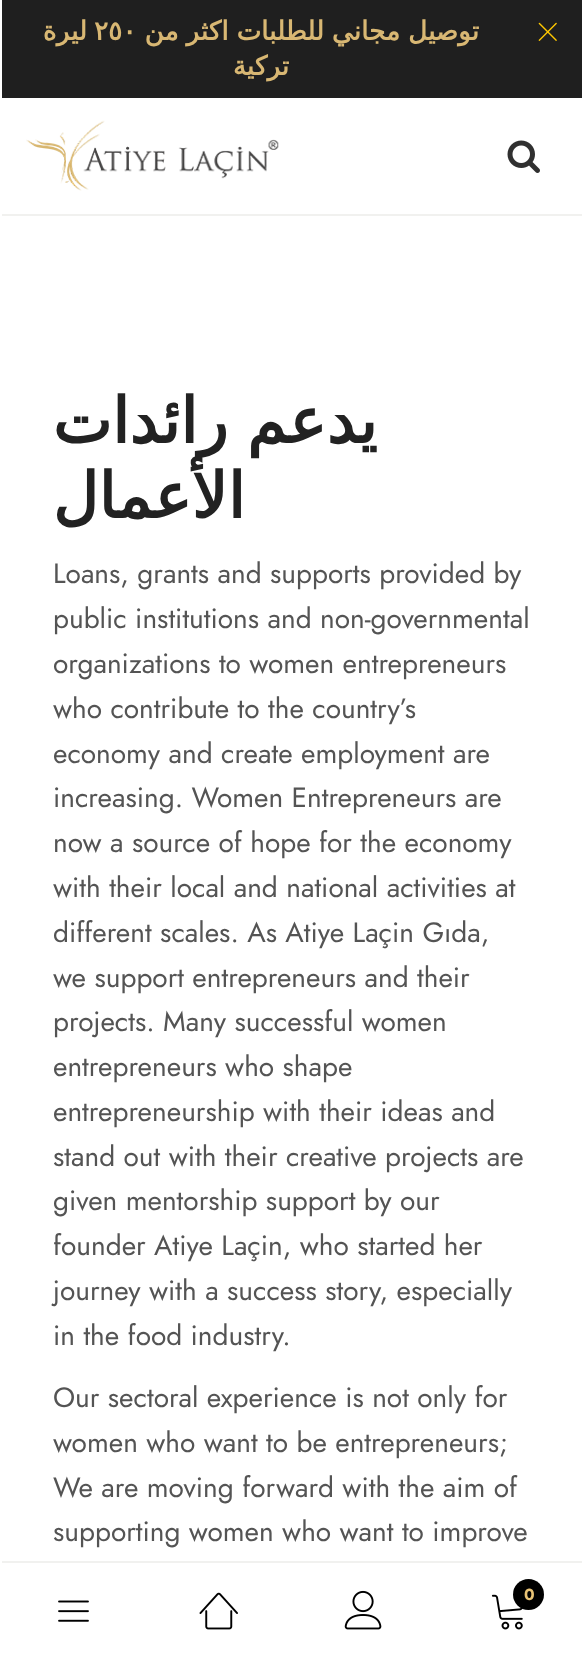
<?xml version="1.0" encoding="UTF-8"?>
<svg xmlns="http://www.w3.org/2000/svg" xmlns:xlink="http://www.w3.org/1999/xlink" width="582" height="1656">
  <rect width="100%" height="100%" fill="#ffffff" />
  <rect y="214" width="582" height="2" fill="#f1f1ef" />
  <rect y="1561" width="582" height="2" fill="#f1f1ef" />
  <rect y="214" width="2" height="1349" fill="#ffffff" />
  <rect x="2" width="580" height="98" fill="#1f1f1f" />
  <image x="538" y="22" width="19" height="19" xlink:href="image1.png" />
  <image x="26" y="120" width="253" height="71" xlink:href="image2.png" />
  <image x="507" y="140" width="33" height="33" xlink:href="image3.png" />
  <image x="58" y="1600" width="31" height="22" xlink:href="image4.png" />
  <image x="199" y="1592" width="39" height="38" xlink:href="image5.png" />
  <image x="344" y="1590" width="38" height="40" xlink:href="image6.png" />
  <image x="491" y="1594" width="32" height="36" xlink:href="image7.png" />
  <circle cx="528.5" cy="1594.5" r="15.5" fill="#000000" />
  <text x="87" y="40" style="font-family: DejaVu Sans; font-size: 26.25px; font-weight: bold; direction: rtl; fill: #d8b773">ليرة</text>
  <text x="94" y="40" style="font-family: DejaVu Sans; font-size: 26.25px; font-weight: bold; fill: #d8b773">٢٥٠</text>
  <text x="400" y="40" word-spacing="-0.5" style="font-family: DejaVu Sans; font-size: 26.25px; font-weight: bold; direction: rtl; fill: #d8b773">مجاني للطلبات اكثر من</text>
  <text x="479" y="40" style="font-family: DejaVu Sans; font-size: 26.25px; font-weight: bold; direction: rtl; fill: #d8b773">توصيل</text>
  <text x="289" y="75" style="font-family: DejaVu Sans; font-size: 26.25px; font-weight: bold; direction: rtl; fill: #d8b773">تركية</text>
  <text x="377" y="443" word-spacing="-1" style="font-family: DejaVu Sans; font-size: 63px; font-weight: bold; direction: rtl; fill: #222222">يدعم رائدات</text>
  <text x="245" y="518" style="font-family: DejaVu Sans; font-size: 63px; font-weight: bold; direction: rtl; fill: #222222">الأعمال</text>
  <text x="53" y="583" style="font-family: Jost; font-size: 28px; fill: #545454">Loans, grants and supports provided by</text>
  <text x="53" y="628" style="font-family: Jost; font-size: 28px; fill: #545454">public institutions and non-governmental</text>
  <text x="53" y="673" style="font-family: Jost; font-size: 28px; fill: #545454">organizations to women entrepreneurs</text>
  <text x="53" y="718" style="font-family: Jost; font-size: 28px; fill: #545454">who contribute to the country’s</text>
  <text x="53" y="763" style="font-family: Jost; font-size: 28px; fill: #545454">economy and create employment are</text>
  <text x="53" y="807" style="font-family: Jost; font-size: 28px; fill: #545454">increasing. Women Entrepreneurs are</text>
  <text x="53" y="852" style="font-family: Jost; font-size: 28px; fill: #545454">now a source of hope for the economy</text>
  <text x="53" y="897" style="font-family: Jost; font-size: 28px; fill: #545454">with their local and national activities at</text>
  <text x="53" y="942" style="font-family: Jost; font-size: 28px; fill: #545454">different scales. As Atiye Laçin Gıda,</text>
  <text x="53" y="987" style="font-family: Jost; font-size: 28px; fill: #545454">we support entrepreneurs and their</text>
  <text x="53" y="1031" style="font-family: Jost; font-size: 28px; fill: #545454">projects. Many successful women</text>
  <text x="53" y="1076" style="font-family: Jost; font-size: 28px; fill: #545454">entrepreneurs who shape</text>
  <text x="53" y="1121" style="font-family: Jost; font-size: 28px; fill: #545454">entrepreneurship with their ideas and</text>
  <text x="53" y="1166" style="font-family: Jost; font-size: 28px; fill: #545454">stand out with their creative projects are</text>
  <text x="53" y="1210" style="font-family: Jost; font-size: 28px; fill: #545454">given mentorship support by our</text>
  <text x="53" y="1255" style="font-family: Jost; font-size: 28px; fill: #545454">founder Atiye Laçin, who started her</text>
  <text x="53" y="1300" style="font-family: Jost; font-size: 28px; fill: #545454">journey with a success story, especially</text>
  <text x="53" y="1345" style="font-family: Jost; font-size: 28px; fill: #545454">in the food industry.</text>
  <text x="53" y="1407" style="font-family: Jost; font-size: 28px; fill: #545454">Our sectoral experience is not only for</text>
  <text x="53" y="1452" style="font-family: Jost; font-size: 28px; fill: #545454">women who want to be entrepreneurs;</text>
  <text x="53" y="1497" style="font-family: Jost; font-size: 28px; fill: #545454">We are moving forward with the aim of</text>
  <text x="53" y="1541" style="font-family: Jost; font-size: 28px; fill: #545454">supporting women who want to improve</text>
  <text x="524" y="1600" style="font-family: Jost; font-size: 16px; font-weight: bold; fill: #e8c275">0</text>
</svg>
